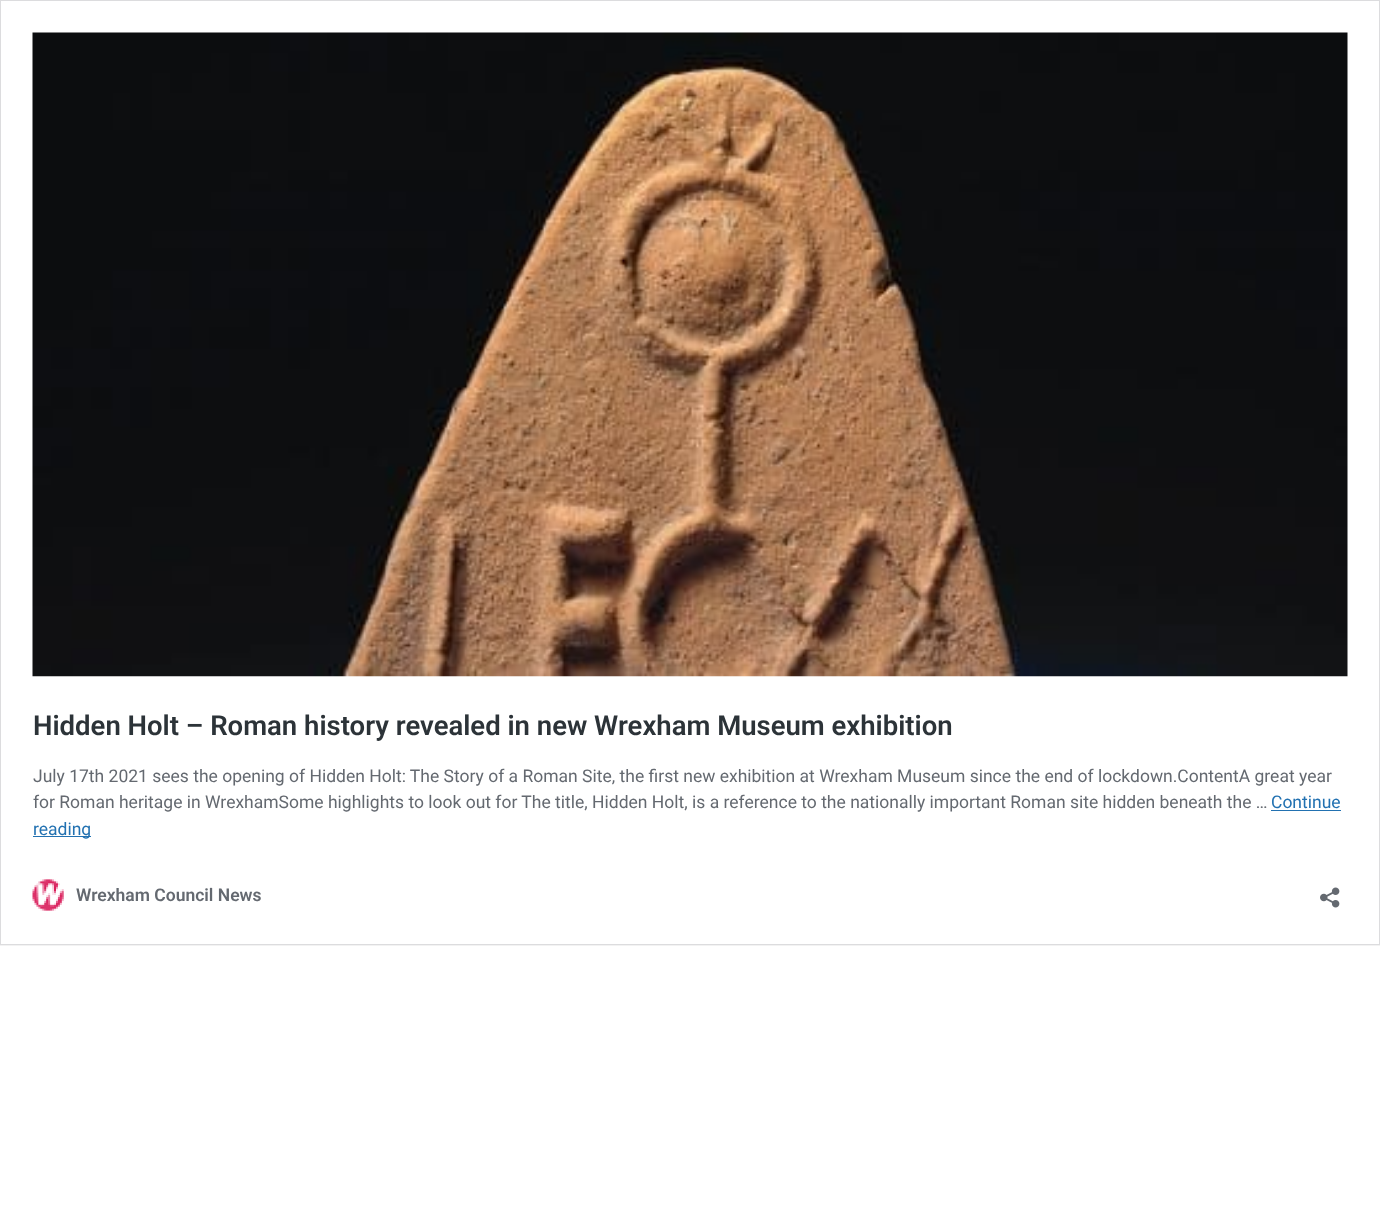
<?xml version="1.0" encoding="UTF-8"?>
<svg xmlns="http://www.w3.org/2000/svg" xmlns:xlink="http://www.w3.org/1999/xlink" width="1380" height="1225">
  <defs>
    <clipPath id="clip1"><rect x="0" y="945" width="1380" height="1" /></clipPath>
  </defs>
  <rect width="100%" height="100%" fill="#ffffff" />
  <g clip-path="url(#clip1)">
    <rect y="1" width="1380" height="945" fill="#000000" fill-opacity="0.05" filter="blur(0.5px)" />
  </g>
  <rect x="0.5" y="0.5" width="1379" height="944" fill="none" stroke="#dcdcde" />
  <image x="32" y="32" width="1316" height="645" xlink:href="image1.png" />
  <rect x="1271" y="810" width="70" height="1" fill="#2271b1" />
  <rect x="33" y="836" width="58" height="1" fill="#2271b1" />
  <image x="32" y="879" width="32" height="32" xlink:href="image2.png" />
  <image x="1320" y="887" width="20" height="21" xlink:href="image3.png" />
  <text x="33" y="735" style="font-family: Roboto; font-size: 27.5px; font-weight: 600; fill: #2c3338">Hidden Holt – Roman history revealed in new Wrexham Museum exhibition</text>
  <text x="33" y="782" style="font-family: Roboto; font-size: 17.5px; fill: #646970">July 17th 2021 sees the opening of Hidden Holt: The Story of a Roman Site, the first new exhibition at Wrexham Museum since the end of lockdown.ContentA great year</text>
  <text x="33" y="808" style="font-family: Roboto; font-size: 17.5px; fill: #646970">for Roman heritage in WrexhamSome highlights to look out for The title, Hidden Holt, is a reference to the nationally important Roman site hidden beneath the …</text>
  <text x="1271" y="808" style="font-family: Roboto; font-size: 17.5px; fill: #2271b1">Continue</text>
  <text x="33" y="835" style="font-family: Roboto; font-size: 17.5px; fill: #2271b1">reading</text>
  <text x="76" y="901" style="font-family: Roboto; font-size: 17.5px; font-weight: 600; fill: #646970">Wrexham Council News</text>
</svg>
